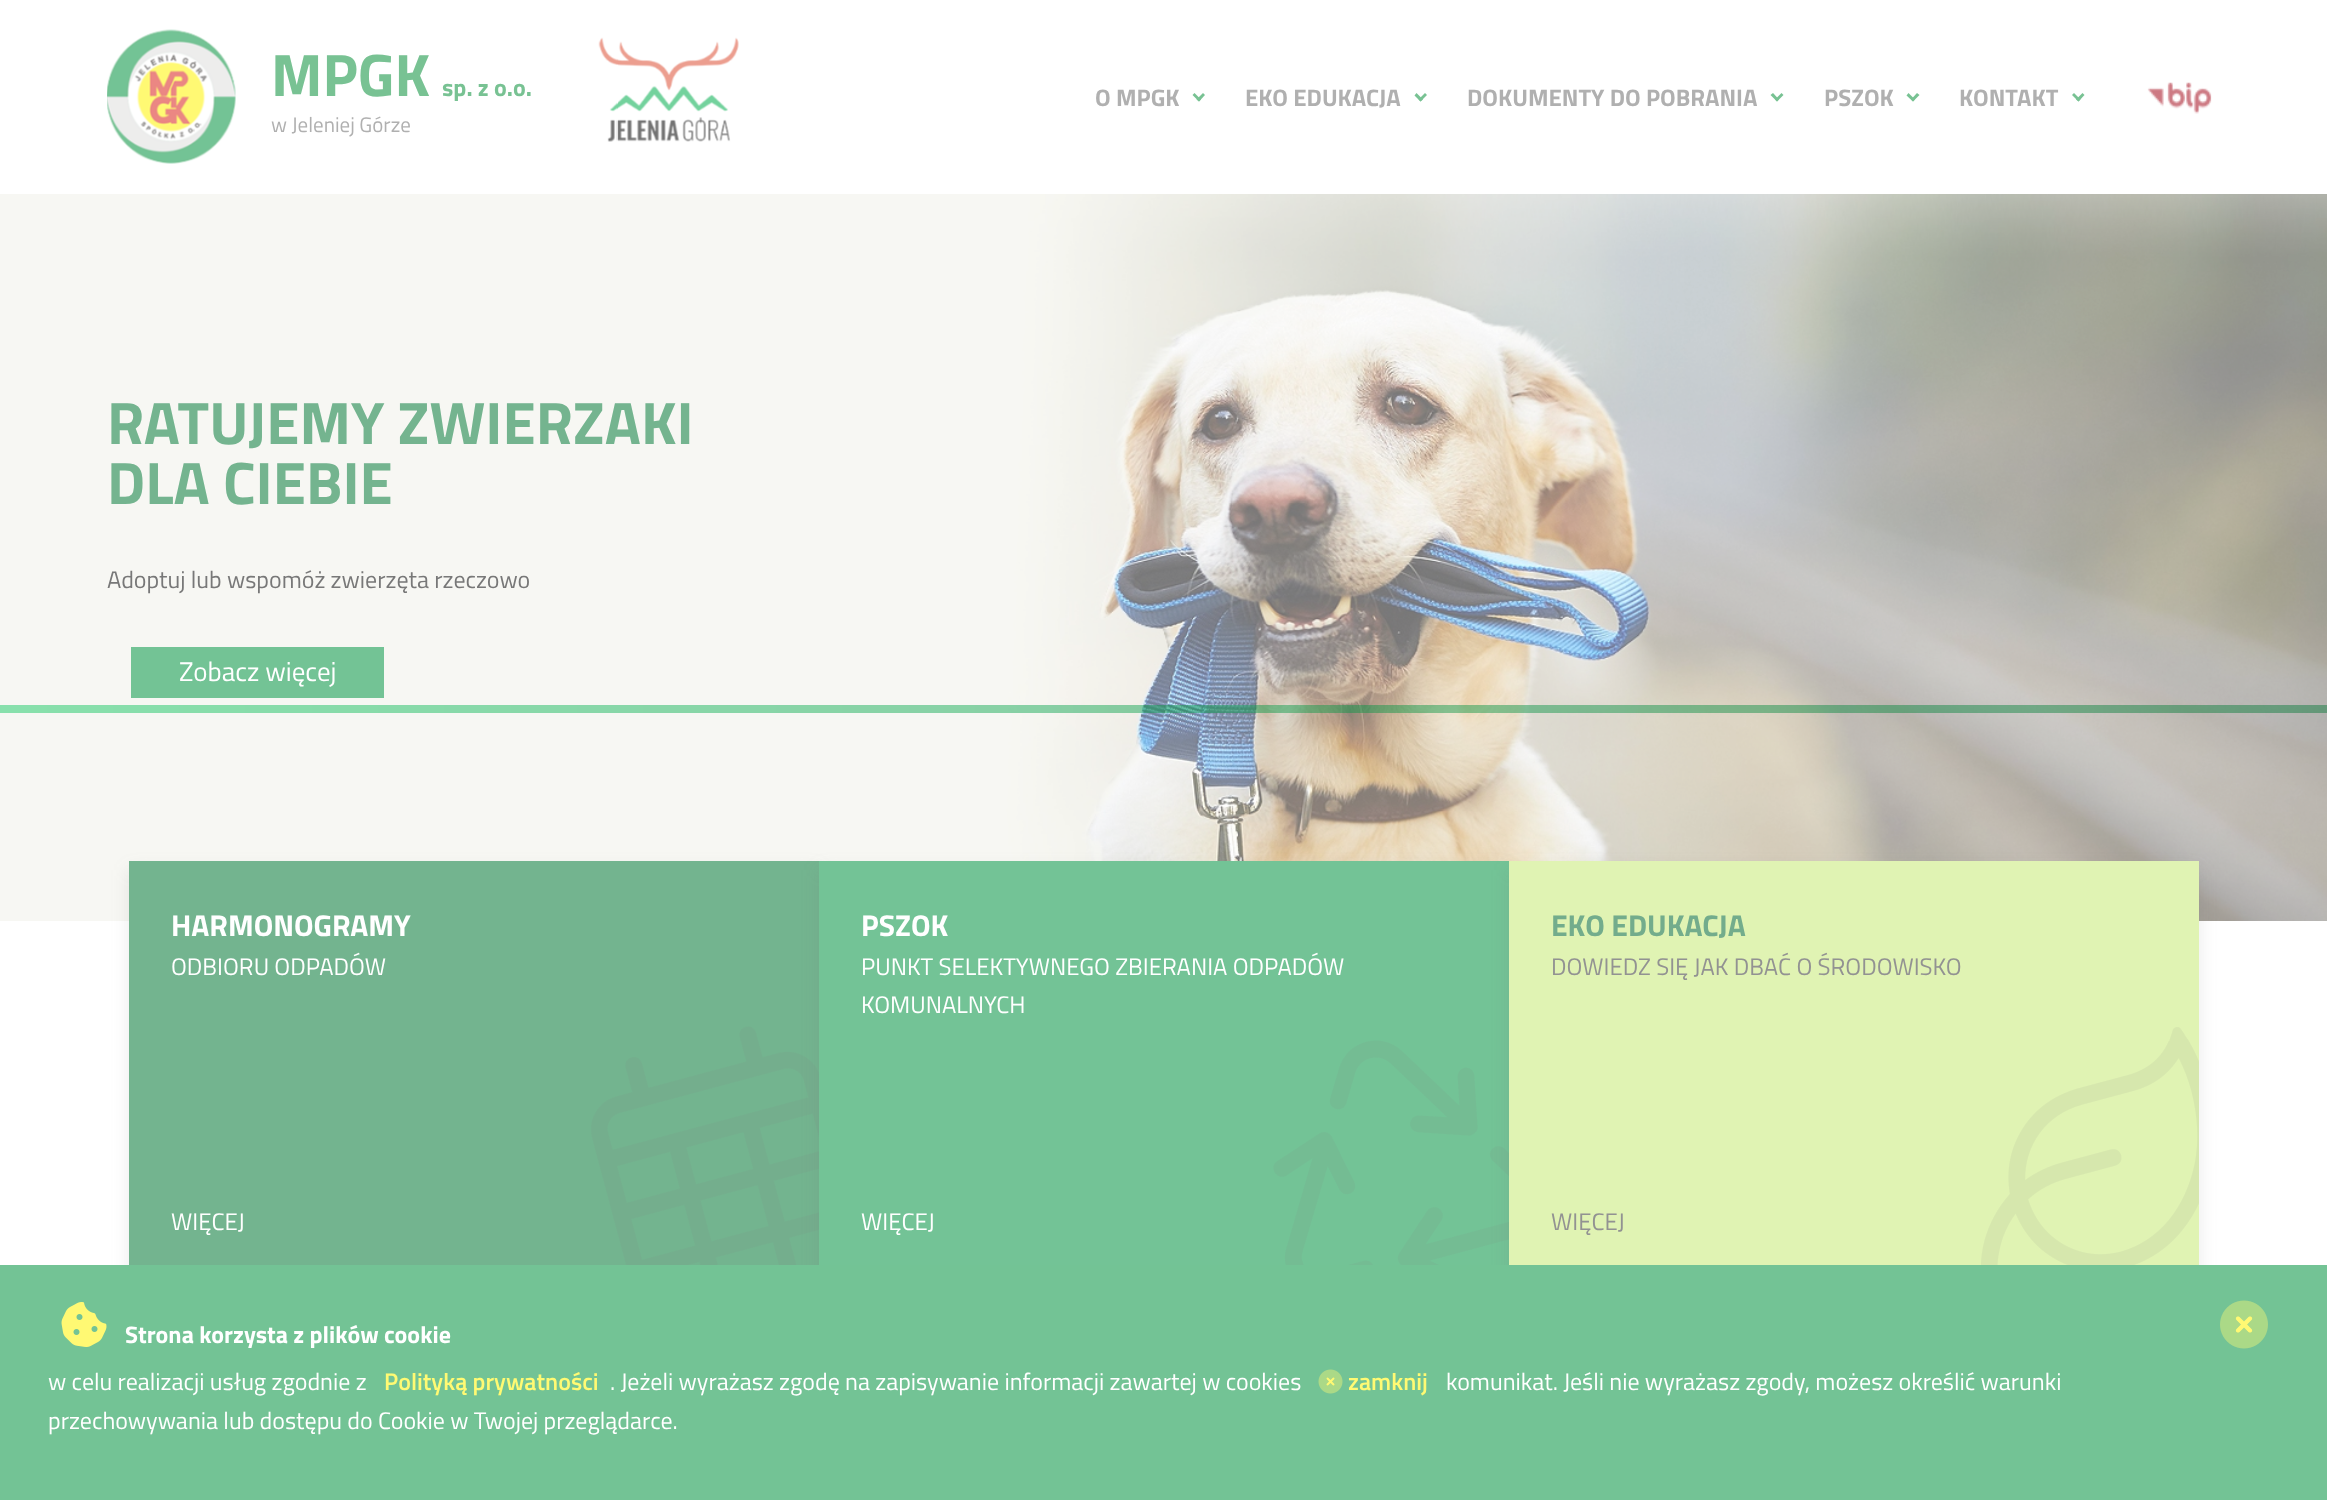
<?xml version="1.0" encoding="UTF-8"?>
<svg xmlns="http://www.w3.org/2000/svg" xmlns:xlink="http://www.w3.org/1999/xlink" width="2327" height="1500">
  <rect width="100%" height="100%" fill="#ffffff" />
  <image x="107" y="29" width="129" height="135" xlink:href="image1.png" />
  <image x="598" y="37" width="141" height="105" xlink:href="image2.png" />
  <path d="M 1203 93 l 2 2 l -6 6.5 l -2.5 -2 z" fill="#78c293" />
  <path d="M 1194.5 93 l 6.5 6.5 l -2 2 l -6.5 -6.5 z" fill="#78c293" />
  <path d="M 1425 93 l 2 2 l -6.5 6.5 l -2 -2 z" fill="#78c293" />
  <path d="M 1416.5 93 l 6.5 6.5 l -2.5 2 l -6 -6 z" fill="#78c293" />
  <path d="M 1781.5 93 l 2 2 l -6.5 6.5 l -2 -2 z" fill="#78c293" />
  <path d="M 1773 93 l 6 6.5 l -2 2 l -6.5 -6.5 z" fill="#78c293" />
  <path d="M 1917 93 l 2.5 2 l -6.5 6.5 l -2 -2 z" fill="#78c293" />
  <path d="M 1908.5 93 l 6.5 6.5 l -2 2 l -6.5 -6 z" fill="#78c293" />
  <path d="M 2082.5 93 l 2 2 l -6 6.5 l -2.5 -2 z" fill="#78c293" />
  <path d="M 2074 93 l 6.5 6.5 l -2 2 l -6.5 -6.5 z" fill="#78c293" />
  <image x="2147" y="82" width="65" height="32" xlink:href="image3.png" />
  <image x="0" y="194" width="2327" height="727" xlink:href="image4.png" />
  <rect x="131" y="647" width="253" height="51" fill="#73c395" />
  <rect x="129" y="870" width="690" height="420" fill="#737373" fill-opacity="0.15" filter="blur(9px)" />
  <rect x="129" y="861" width="690" height="404" fill="#73b48f" />
  <image x="591" y="1026" width="228" height="239" xlink:href="image5.png" />
  <rect x="819" y="870" width="690" height="420" fill="#737373" fill-opacity="0.15" filter="blur(9px)" />
  <rect x="819" y="861" width="690" height="404" fill="#73c396" />
  <image x="1273" y="1040" width="236" height="225" xlink:href="image6.png" />
  <rect x="1509" y="870" width="690" height="420" fill="#737373" fill-opacity="0.15" filter="blur(9px)" />
  <rect x="1509" y="861" width="690" height="404" fill="#e0f3b3" />
  <image x="1981" y="1027" width="218" height="238" xlink:href="image7.png" />
  <rect y="1265" width="2327" height="235" fill="#73c395" />
  <image x="61" y="1302" width="46" height="45" xlink:href="image8.png" />
  <image x="2235" y="1316" width="18" height="17" xlink:href="image10.png" />
  <image x="2220" y="1300" width="48" height="49" xlink:href="image9.png" />
  <image x="1326" y="1377" width="9" height="9" xlink:href="image12.png" />
  <image x="1318" y="1369" width="25" height="25" xlink:href="image11.png" />
  <text x="271" y="96" style="font-family: Titillium Web; font-size: 60px; font-weight: bold; fill: #78c293">MPGK</text>
  <text x="442" y="96" style="font-family: Titillium Web; font-size: 24px; font-weight: bold; fill: #78c293">sp. z o.o.</text>
  <text x="271" y="132" style="font-family: Titillium Web; font-size: 21px; fill: #b0b0b0">w Jeleniej Górze</text>
  <text x="1095" y="106" style="font-family: Titillium Web; font-size: 24px; font-weight: bold; fill: #b0b0b0">O MPGK</text>
  <text x="1245" y="106" style="font-family: Titillium Web; font-size: 24px; font-weight: bold; fill: #b0b0b0">EKO EDUKACJA</text>
  <text x="1467" y="106" style="font-family: Titillium Web; font-size: 24px; font-weight: bold; fill: #b0b0b0">DOKUMENTY DO POBRANIA</text>
  <text x="1824" y="106" style="font-family: Titillium Web; font-size: 24px; font-weight: bold; fill: #b0b0b0">PSZOK</text>
  <text x="1959" y="106" style="font-family: Titillium Web; font-size: 24px; font-weight: bold; fill: #b0b0b0">KONTAKT</text>
  <text x="107" y="444" style="font-family: Titillium Web; font-size: 60px; font-weight: bold; fill: #74b48f">RATUJEMY ZWIERZAKI</text>
  <text x="107" y="504" style="font-family: Titillium Web; font-size: 60px; font-weight: bold; fill: #74b48f">DLA CIEBIE</text>
  <text x="107" y="588" style="font-family: Titillium Web; font-size: 24px; fill: #787878">Adoptuj lub wspomóż zwierzęta rzeczowo</text>
  <text x="179" y="681" style="font-family: Titillium Web; font-size: 27px; fill: #ffffff">Zobacz więcej</text>
  <text x="171" y="936" style="font-family: Titillium Web; font-size: 30px; font-weight: bold; fill: #ffffff">HARMONOGRAMY</text>
  <text x="171" y="975" style="font-family: Titillium Web; font-size: 24px; fill: #ffffff">ODBIORU ODPADÓW</text>
  <text x="171" y="1230" style="font-family: Titillium Web; font-size: 24px; fill: #ffffff">WIĘCEJ</text>
  <text x="861" y="936" style="font-family: Titillium Web; font-size: 30px; font-weight: bold; fill: #ffffff">PSZOK</text>
  <text x="861" y="975" style="font-family: Titillium Web; font-size: 24px; fill: #ffffff">PUNKT SELEKTYWNEGO ZBIERANIA ODPADÓW</text>
  <text x="861" y="1013" style="font-family: Titillium Web; font-size: 24px; fill: #ffffff">KOMUNALNYCH</text>
  <text x="861" y="1230" style="font-family: Titillium Web; font-size: 24px; fill: #ffffff">WIĘCEJ</text>
  <text x="1551" y="936" style="font-family: Titillium Web; font-size: 30px; font-weight: bold; fill: #73ac8c">EKO EDUKACJA</text>
  <text x="1551" y="975" style="font-family: Titillium Web; font-size: 24px; fill: #929292">DOWIEDZ SIĘ JAK DBAĆ O ŚRODOWISKO</text>
  <text x="1551" y="1230" style="font-family: Titillium Web; font-size: 24px; fill: #929292">WIĘCEJ</text>
  <text x="125" y="1343" style="font-family: Titillium Web; font-size: 24px; font-weight: bold; fill: #ffffff">Strona korzysta z plików cookie</text>
  <text x="48" y="1390" style="font-family: Titillium Web; font-size: 24px; fill: #ffffff">w celu realizacji usług zgodnie z</text>
  <text x="384" y="1390" style="font-family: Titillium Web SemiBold; font-size: 24px; font-weight: 600; fill: #fffa73">Polityką prywatności</text>
  <text x="610" y="1390" style="font-family: Titillium Web; font-size: 24px; fill: #ffffff">. Jeżeli wyrażasz zgodę na zapisywanie informacji zawartej w cookies</text>
  <text x="1348" y="1390" style="font-family: Titillium Web SemiBold; font-size: 24px; font-weight: 600; fill: #fffa73">zamknij</text>
  <text x="1446" y="1390" style="font-family: Titillium Web; font-size: 24px; fill: #ffffff">komunikat. Jeśli nie wyrażasz zgody, możesz określić warunki</text>
  <text x="48" y="1429" style="font-family: Titillium Web; font-size: 24px; fill: #ffffff">przechowywania lub dostępu do Cookie w Twojej przeglądarce.</text>
</svg>
